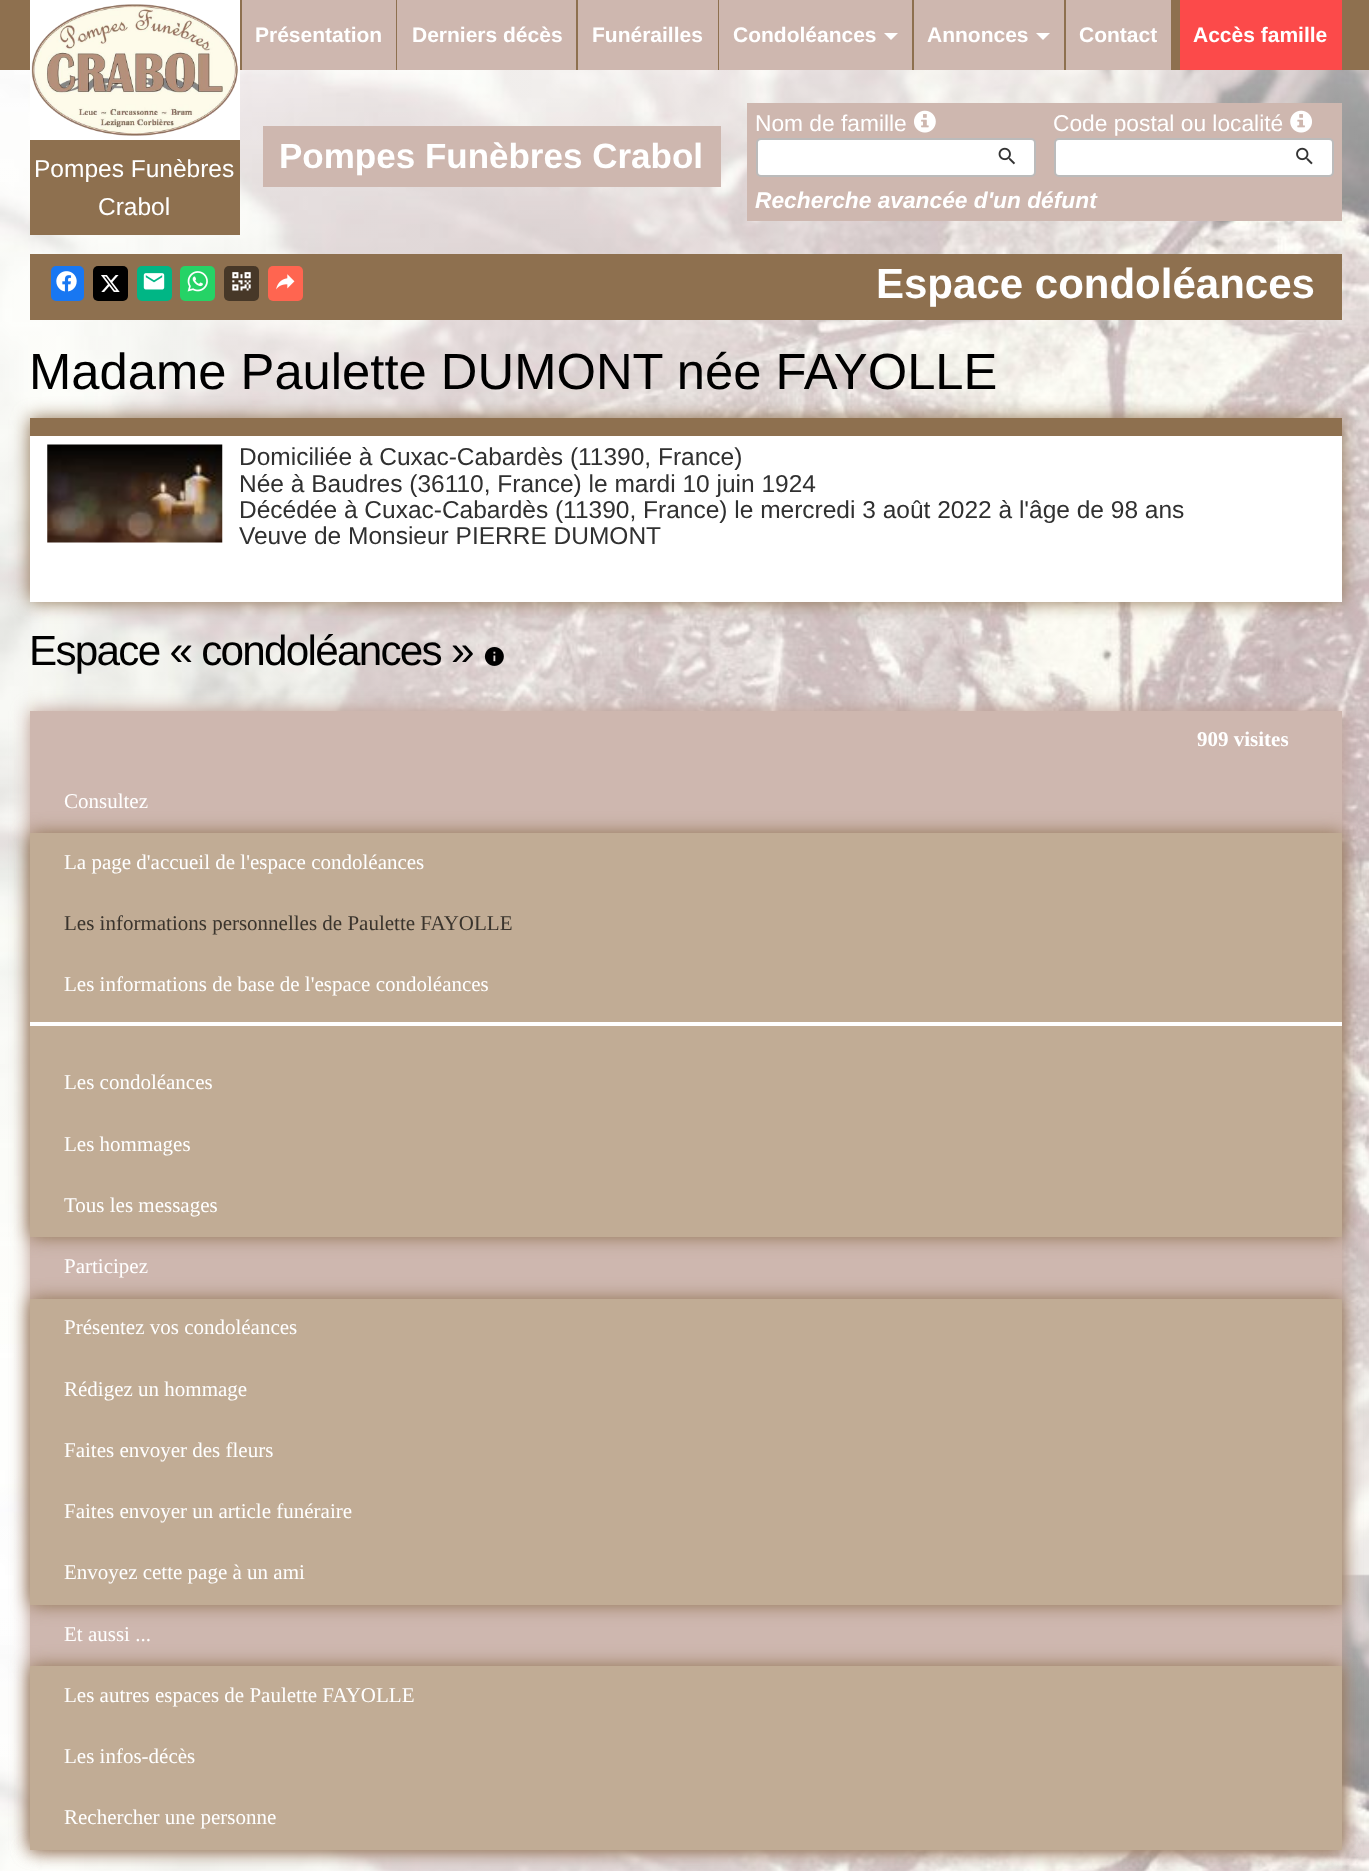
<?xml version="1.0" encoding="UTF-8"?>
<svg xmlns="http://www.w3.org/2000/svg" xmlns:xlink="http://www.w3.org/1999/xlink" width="1369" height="1871">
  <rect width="100%" height="100%" fill="#ffffff" />
  <image x="0" y="70" width="1369" height="1801" xlink:href="image1.png" />
  <rect width="1369" height="70" fill="#8e704f" />
  <rect x="30" width="210" height="140" fill="#ffffff" />
  <image x="31" y="4" width="207" height="132" xlink:href="image2.png" />
  <rect x="242" width="154" height="70" fill="#ceb7af" />
  <rect x="397" width="179" height="70" fill="#ceb7af" />
  <rect x="578" width="140" height="70" fill="#ceb7af" />
  <rect x="719" width="193" height="70" fill="#ceb7af" />
  <path d="M 884 33 h 14 l -7 7 z" fill="#ffffff" />
  <rect x="914" width="150" height="70" fill="#ceb7af" />
  <path d="M 1036 33 h 14 l -7 7 z" fill="#ffffff" />
  <rect x="1066" width="105" height="70" fill="#ceb7af" />
  <rect x="1180" width="162" height="70" fill="#fc4a4a" />
  <rect x="30" y="140" width="210" height="95" fill="#8e704f" />
  <rect x="747" y="103" width="595" height="118" fill="#ceb7af" />
  <image x="914" y="110" width="22" height="23" xlink:href="image3.png" />
  <rect x="757" y="139" width="278" height="37" rx="4" fill="#ffffff" stroke="#bbbbbb" stroke-width="2" />
  <image x="998" y="147" width="18" height="18" xlink:href="image4.png" />
  <image x="1290" y="110" width="22" height="23" xlink:href="image5.png" />
  <rect x="1055" y="139" width="278" height="37" rx="4" fill="#ffffff" stroke="#bbbbbb" stroke-width="2" />
  <image x="1296" y="147" width="17" height="18" xlink:href="image6.png" />
  <rect x="30" y="254" width="1312" height="66" fill="#8e704f" />
  <rect x="51" y="266" width="33" height="35" rx="5" fill="#1877f2" />
  <image x="56" y="271" width="21" height="21" xlink:href="image7.png" />
  <rect x="93" y="266" width="35" height="35" rx="5" fill="#000000" />
  <image x="101" y="275" width="19" height="17" xlink:href="image8.png" />
  <rect x="137" y="266" width="35" height="35" rx="5" fill="#00b685" />
  <image x="143" y="273" width="22" height="17" xlink:href="image9.png" />
  <rect x="180" y="266" width="35" height="35" rx="5" fill="#25d366" />
  <image x="187" y="271" width="21" height="21" xlink:href="image10.png" />
  <rect x="224" y="266" width="35" height="35" rx="5" fill="#473828" />
  <image x="232" y="272" width="19" height="19" xlink:href="image11.png" />
  <rect x="268" y="266" width="35" height="35" rx="5" fill="#ff6550" />
  <image x="276" y="274" width="19" height="16" xlink:href="image12.png" />
  <rect x="263" y="126" width="458" height="61" fill="#ceb7af" />
  <rect x="30" y="418" width="1312" height="184" fill="#8e704f" filter="blur(9px)" />
  <rect x="30" y="436" width="1312" height="166" fill="#ffffff" />
  <rect x="30" y="418" width="1312" height="18" fill="#8e704f" />
  <image x="47" y="444" width="176" height="99" xlink:href="image13.png" />
  <image x="484" y="647" width="20" height="19" xlink:href="image14.png" />
  <rect x="30" y="711" width="1312" height="1139" fill="#bb9a8f" filter="blur(9px)" />
  <rect x="30" y="711" width="1312" height="955" fill="#ceb7af" />
  <rect x="30" y="833" width="1312" height="404" fill="#8e704f" filter="blur(9px)" />
  <rect x="30" y="833" width="1312" height="404" fill="#c1ac95" />
  <rect x="30" y="1022" width="1312" height="4" fill="#ffffff" />
  <rect x="30" y="1299" width="1312" height="306" fill="#8e704f" filter="blur(9px)" />
  <rect x="30" y="1299" width="1312" height="306" fill="#c1ac95" />
  <rect x="30" y="1666" width="1312" height="184" fill="#8e704f" filter="blur(9px)" />
  <rect x="30" y="1666" width="1312" height="184" fill="#c1ac95" />
  <text x="255" y="42" style="font-family: Liberation Sans; font-size: 21px; font-weight: bold; fill: #ffffff">Présentation</text>
  <text x="412" y="42" style="font-family: Liberation Sans; font-size: 21px; font-weight: bold; fill: #ffffff">Derniers décès</text>
  <text x="592" y="42" style="font-family: Liberation Sans; font-size: 21px; font-weight: bold; fill: #ffffff">Funérailles</text>
  <text x="733" y="42" style="font-family: Liberation Sans; font-size: 21px; font-weight: bold; fill: #ffffff">Condoléances</text>
  <text x="927" y="42" style="font-family: Liberation Sans; font-size: 21px; font-weight: bold; fill: #ffffff">Annonces</text>
  <text x="1079" y="42" style="font-family: Liberation Sans; font-size: 21px; font-weight: bold; fill: #ffffff">Contact</text>
  <text x="1193" y="42" style="font-family: Liberation Sans; font-size: 21px; font-weight: bold; fill: #ffffff">Accès famille</text>
  <text x="34" y="177" style="font-family: Liberation Sans; font-size: 24.5px; fill: #ffffff">Pompes Funèbres</text>
  <text x="98" y="215" style="font-family: Liberation Sans; font-size: 24.5px; fill: #ffffff">Crabol</text>
  <text x="755" y="131" style="font-family: Liberation Sans; font-size: 22.75px; fill: #ffffff">Nom de famille</text>
  <text x="1053" y="131" style="font-family: Liberation Sans; font-size: 22.75px; fill: #ffffff">Code postal ou localité</text>
  <text x="755" y="208" style="font-family: Liberation Sans; font-size: 22.75px; font-weight: bold; font-style: italic; fill: #ffffff">Recherche avancée d'un défunt</text>
  <text x="876" y="298" style="font-family: Liberation Sans; font-size: 42px; font-weight: bold; fill: #ffffff">Espace condoléances</text>
  <text x="279" y="168" style="font-family: Liberation Sans; font-size: 35px; font-weight: bold; fill: #ffffff">Pompes Funèbres Crabol</text>
  <text x="29" y="389" style="font-family: Liberation Sans; font-size: 50.75px; fill: #000000">Madame Paulette DUMONT née FAYOLLE</text>
  <text x="239" y="465" style="font-family: Liberation Sans; font-size: 24.5px; fill: #303030">Domiciliée à Cuxac-Cabardès (11390, France)</text>
  <text x="239" y="492" style="font-family: Liberation Sans; font-size: 24.5px; fill: #303030">Née à Baudres (36110, France) le mardi 10 juin 1924</text>
  <text x="239" y="518" style="font-family: Liberation Sans; font-size: 24.5px; fill: #303030">Décédée à Cuxac-Cabardès (11390, France) le mercredi 3 août 2022 à l'âge de 98 ans</text>
  <text x="239" y="544" style="font-family: Liberation Sans; font-size: 24.5px; fill: #303030">Veuve de Monsieur PIERRE DUMONT</text>
  <text x="29" y="665" style="font-family: Liberation Sans; font-size: 42.25px; letter-spacing: -1.75px; fill: #000000">Espace « condoléances »</text>
  <text x="1197" y="746" style="font-family: Liberation Serif; font-size: 21px; font-weight: bold; fill: #ffffff">909 visites</text>
  <text x="64" y="808" style="font-family: Liberation Serif; font-size: 21px; fill: #ffffff">Consultez</text>
  <text x="64" y="869" style="font-family: Liberation Serif; font-size: 21px; fill: #ffffff">La page d'accueil de l'espace condoléances</text>
  <text x="64" y="930" style="font-family: Liberation Serif; font-size: 21px; fill: #3a342d">Les informations personnelles de Paulette FAYOLLE</text>
  <text x="64" y="991" style="font-family: Liberation Serif; font-size: 21px; fill: #ffffff">Les informations de base de l'espace condoléances</text>
  <text x="64" y="1089" style="font-family: Liberation Serif; font-size: 21px; fill: #ffffff">Les condoléances</text>
  <text x="64" y="1151" style="font-family: Liberation Serif; font-size: 21px; fill: #ffffff">Les hommages</text>
  <text x="64" y="1212" style="font-family: Liberation Serif; font-size: 21px; fill: #ffffff">Tous les messages</text>
  <text x="64" y="1273" style="font-family: Liberation Serif; font-size: 21px; fill: #ffffff">Participez</text>
  <text x="64" y="1334" style="font-family: Liberation Serif; font-size: 21px; fill: #ffffff">Présentez vos condoléances</text>
  <text x="64" y="1396" style="font-family: Liberation Serif; font-size: 21px; fill: #ffffff">Rédigez un hommage</text>
  <text x="64" y="1457" style="font-family: Liberation Serif; font-size: 21px; fill: #ffffff">Faites envoyer des fleurs</text>
  <text x="64" y="1518" style="font-family: Liberation Serif; font-size: 21px; fill: #ffffff">Faites envoyer un article funéraire</text>
  <text x="64" y="1579" style="font-family: Liberation Serif; font-size: 21px; fill: #ffffff">Envoyez cette page à un ami</text>
  <text x="64" y="1641" style="font-family: Liberation Serif; font-size: 21px; fill: #ffffff">Et aussi ...</text>
  <text x="64" y="1702" style="font-family: Liberation Serif; font-size: 21px; fill: #ffffff">Les autres espaces de Paulette FAYOLLE</text>
  <text x="64" y="1763" style="font-family: Liberation Serif; font-size: 21px; fill: #ffffff">Les infos-décès</text>
  <text x="64" y="1824" style="font-family: Liberation Serif; font-size: 21px; fill: #ffffff">Rechercher une personne</text>
</svg>
